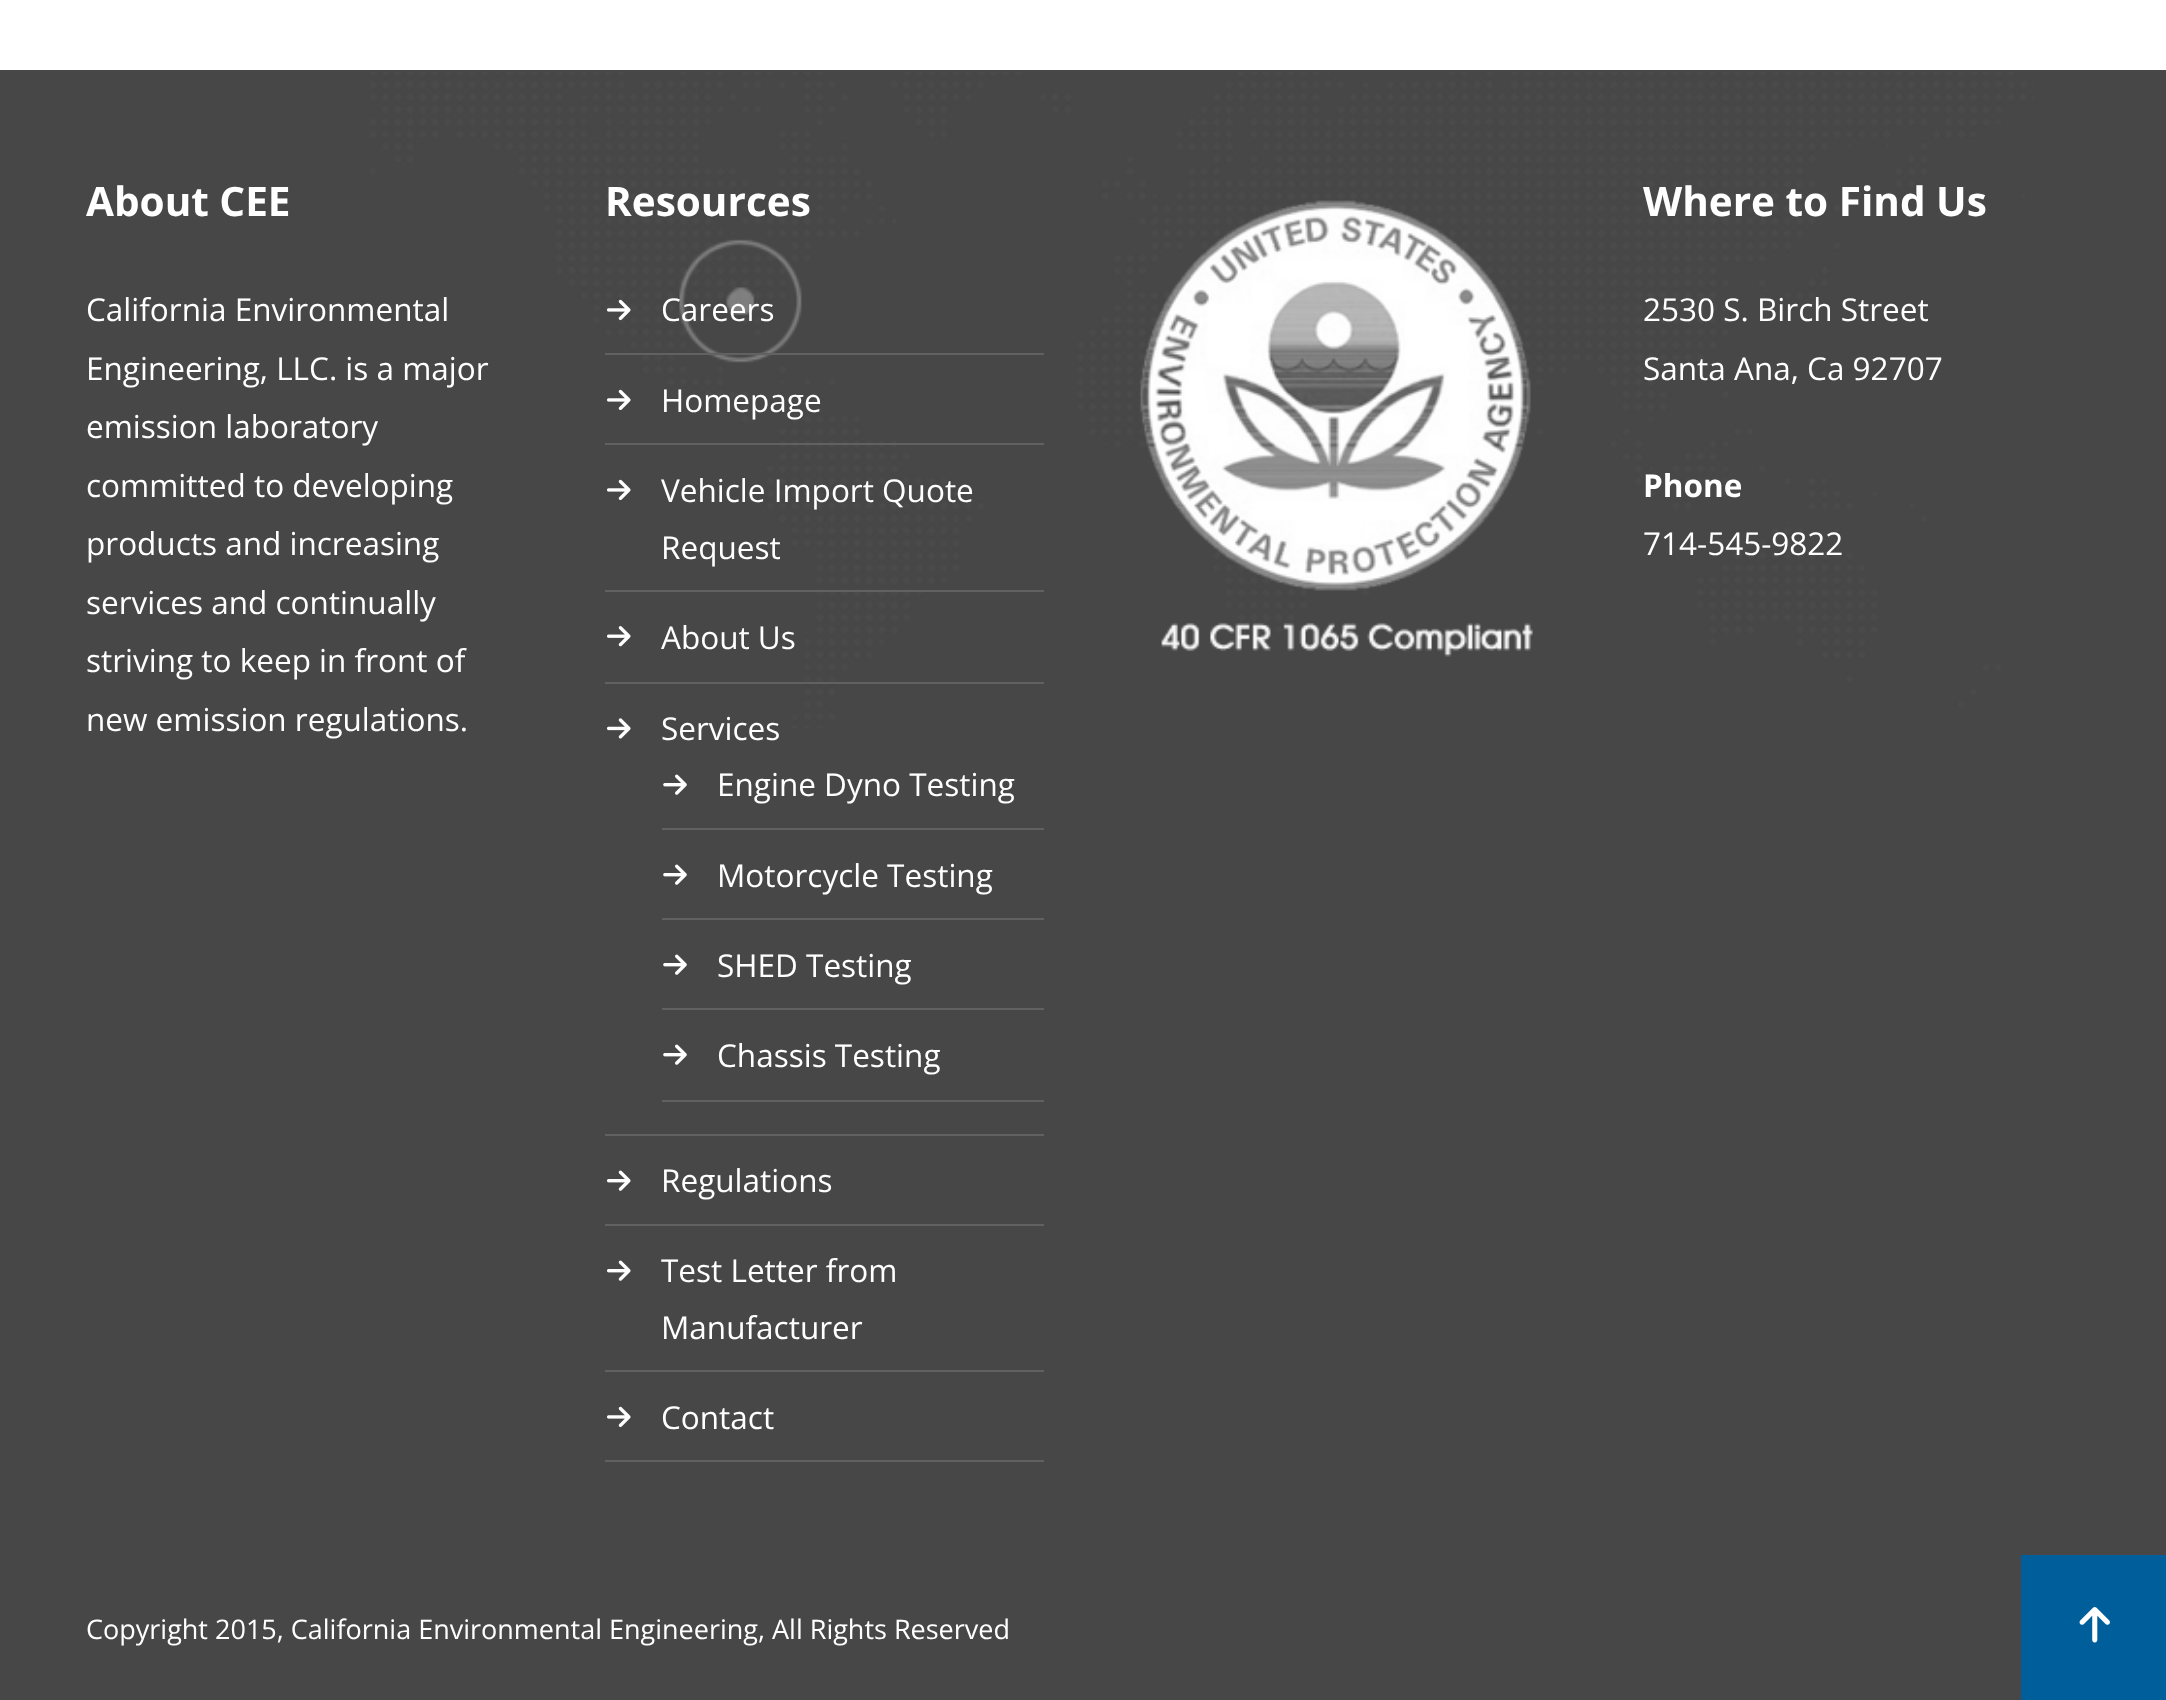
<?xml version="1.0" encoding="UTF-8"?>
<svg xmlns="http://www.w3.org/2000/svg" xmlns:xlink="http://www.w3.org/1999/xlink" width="2166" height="1700">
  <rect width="100%" height="100%" fill="#ffffff" />
  <rect y="70" width="2166" height="1485" fill="#474747" />
  <image x="370" y="72" width="1664" height="656" xlink:href="image1.png" />
  <rect x="605" y="353" width="439" height="2" fill="#616161" />
  <image x="607" y="299" width="24" height="21" xlink:href="image2.png" />
  <rect x="605" y="443" width="439" height="2" fill="#616161" />
  <image x="607" y="389" width="24" height="21" xlink:href="image3.png" />
  <rect x="605" y="590" width="439" height="2" fill="#616161" />
  <image x="607" y="479" width="24" height="21" xlink:href="image3.png" />
  <rect x="605" y="682" width="439" height="2" fill="#616161" />
  <image x="607" y="626" width="24" height="21" xlink:href="image4.png" />
  <rect x="605" y="1134" width="439" height="2" fill="#616161" />
  <image x="607" y="718" width="24" height="21" xlink:href="image5.png" />
  <rect x="662" y="828" width="382" height="2" fill="#616161" />
  <image x="663" y="774" width="24" height="21" xlink:href="image6.png" />
  <rect x="662" y="918" width="382" height="2" fill="#616161" />
  <image x="663" y="864" width="24" height="21" xlink:href="image6.png" />
  <rect x="662" y="1008" width="382" height="2" fill="#616161" />
  <image x="663" y="954" width="24" height="21" xlink:href="image6.png" />
  <rect x="662" y="1100" width="382" height="2" fill="#616161" />
  <image x="663" y="1044" width="24" height="21" xlink:href="image6.png" />
  <rect x="605" y="1224" width="439" height="2" fill="#616161" />
  <image x="607" y="1170" width="24" height="21" xlink:href="image7.png" />
  <rect x="605" y="1370" width="439" height="2" fill="#616161" />
  <image x="607" y="1260" width="24" height="21" xlink:href="image7.png" />
  <rect x="605" y="1460" width="439" height="2" fill="#616161" />
  <image x="607" y="1406" width="24" height="21" xlink:href="image3.png" />
  <image x="1140" y="200" width="393" height="457" xlink:href="image8.png" />
  <rect y="1555" width="2021" height="145" fill="#474747" />
  <rect x="2021" y="1555" width="145" height="145" fill="#005f9b" />
  <image x="2079" y="1607" width="31" height="36" xlink:href="image9.png" />
  <text x="86" y="216" style="font-family: Open Sans; font-size: 40.5px; font-weight: bold; fill: #ffffff">About CEE</text>
  <text x="86" y="321" style="font-family: Open Sans; font-size: 31.5px; fill: #ffffff">California Environmental</text>
  <text x="86" y="380" style="font-family: Open Sans; font-size: 31.5px; fill: #ffffff">Engineering, LLC. is a major</text>
  <text x="86" y="438" style="font-family: Open Sans; font-size: 31.5px; fill: #ffffff">emission laboratory</text>
  <text x="86" y="497" style="font-family: Open Sans; font-size: 31.5px; fill: #ffffff">committed to developing</text>
  <text x="86" y="555" style="font-family: Open Sans; font-size: 31.5px; fill: #ffffff">products and increasing</text>
  <text x="86" y="614" style="font-family: Open Sans; font-size: 31.5px; fill: #ffffff">services and continually</text>
  <text x="86" y="672" style="font-family: Open Sans; font-size: 31.5px; fill: #ffffff">striving to keep in front of</text>
  <text x="86" y="731" style="font-family: Open Sans; font-size: 31.5px; fill: #ffffff">new emission regulations.</text>
  <text x="605" y="216" style="font-family: Open Sans; font-size: 40.5px; font-weight: bold; fill: #ffffff">Resources</text>
  <text x="661" y="321" style="font-family: Open Sans; font-size: 31.5px; fill: #ffffff">Careers</text>
  <text x="661" y="412" style="font-family: Open Sans; font-size: 31.5px; fill: #ffffff">Homepage</text>
  <text x="661" y="502" style="font-family: Open Sans; font-size: 31.5px; fill: #ffffff">Vehicle Import Quote</text>
  <text x="661" y="559" style="font-family: Open Sans; font-size: 31.5px; fill: #ffffff">Request</text>
  <text x="661" y="649" style="font-family: Open Sans; font-size: 31.5px; fill: #ffffff">About Us</text>
  <text x="661" y="740" style="font-family: Open Sans; font-size: 31.5px; fill: #ffffff">Services</text>
  <text x="717" y="796" style="font-family: Open Sans; font-size: 31.5px; fill: #ffffff">Engine Dyno Testing</text>
  <text x="717" y="887" style="font-family: Open Sans; font-size: 31.5px; fill: #ffffff">Motorcycle Testing</text>
  <text x="717" y="977" style="font-family: Open Sans; font-size: 31.5px; fill: #ffffff">SHED Testing</text>
  <text x="717" y="1067" style="font-family: Open Sans; font-size: 31.5px; fill: #ffffff">Chassis Testing</text>
  <text x="661" y="1192" style="font-family: Open Sans; font-size: 31.5px; fill: #ffffff">Regulations</text>
  <text x="661" y="1282" style="font-family: Open Sans; font-size: 31.5px; fill: #ffffff">Test Letter from</text>
  <text x="661" y="1339" style="font-family: Open Sans; font-size: 31.5px; fill: #ffffff">Manufacturer</text>
  <text x="661" y="1429" style="font-family: Open Sans; font-size: 31.5px; fill: #ffffff">Contact</text>
  <text x="1643" y="216" style="font-family: Open Sans; font-size: 40.5px; font-weight: bold; fill: #ffffff">Where to Find Us</text>
  <text x="1643" y="321" style="font-family: Open Sans; font-size: 31.5px; fill: #ffffff">2530 S. Birch Street</text>
  <text x="1643" y="380" style="font-family: Open Sans; font-size: 31.5px; fill: #ffffff">Santa Ana, Ca 92707</text>
  <text x="1643" y="497" style="font-family: Open Sans; font-size: 31.5px; font-weight: bold; fill: #ffffff">Phone</text>
  <text x="1643" y="555" style="font-family: Open Sans; font-size: 31.5px; fill: #ffffff">714-545-9822</text>
  <text x="86" y="1639" style="font-family: Open Sans; font-size: 27px; fill: #ffffff">Copyright 2015, California Environmental Engineering, All Rights Reserved</text>
</svg>
